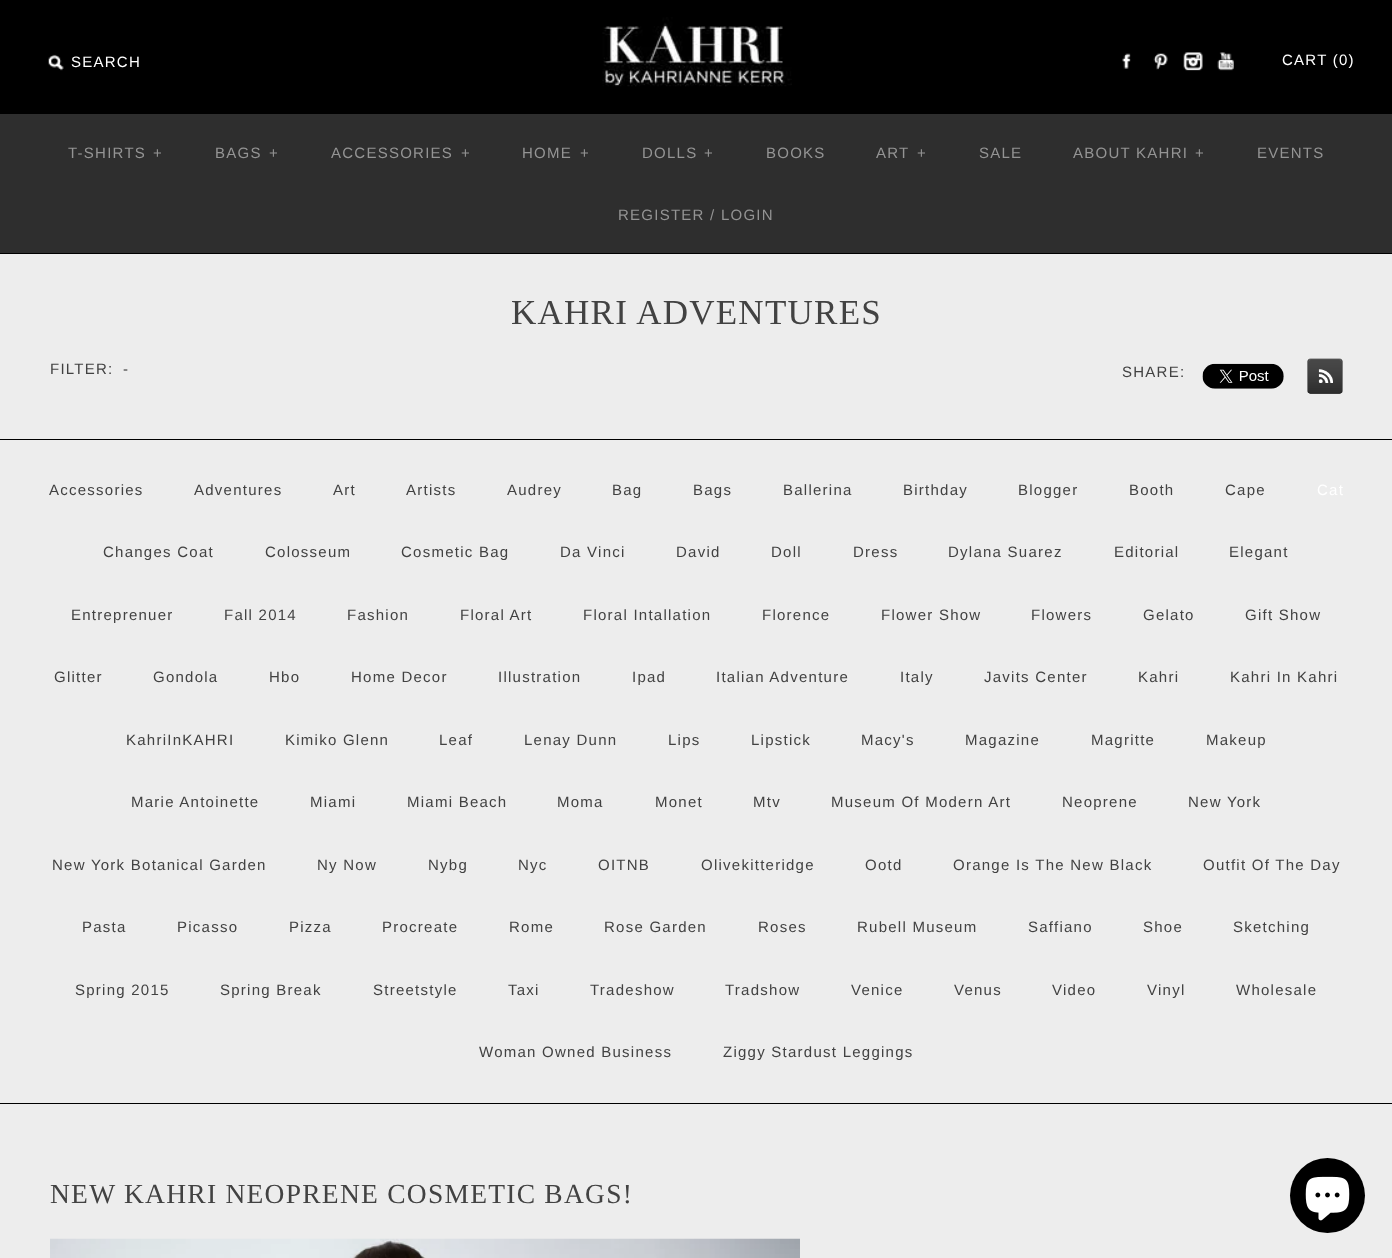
<?xml version="1.0" encoding="UTF-8"?>
<svg xmlns="http://www.w3.org/2000/svg" xmlns:xlink="http://www.w3.org/1999/xlink" width="1392" height="1258">
  <rect width="100%" height="100%" fill="#000000" />
  <image x="602" y="17" width="190" height="70" xlink:href="image1.png" />
  <image x="48" y="54" width="16" height="17" xlink:href="image2.png" />
  <image x="1122" y="53" width="9" height="16" xlink:href="image3.png" />
  <image x="1153" y="53" width="15" height="17" xlink:href="image4.png" />
  <image x="1183" y="52" width="20" height="19" xlink:href="image5.png" />
  <image x="1217" y="52" width="17" height="19" xlink:href="image6.png" />
  <rect y="114" width="1392" height="139" fill="#2e2e2e" />
  <rect y="254" width="1392" height="1004" fill="#ededed" />
  <image x="1202" y="363" width="82" height="26" xlink:href="image7.png" />
  <image x="1307" y="358" width="36" height="36" xlink:href="image8.png" />
  <rect y="439" width="1392" height="1" fill="#000000" />
  <rect y="1103" width="1392" height="1" fill="#000000" />
  <image x="50" y="1238" width="750" height="20" xlink:href="image9.png" />
  <circle cx="1327.5" cy="1195.5" r="37.5" fill="#000000" />
  <image x="1305" y="1176" width="45" height="45" xlink:href="image10.png" />
  <text x="71" y="67" style="font-family: Liberation Sans; font-size: 15px; letter-spacing: 1.25px; fill: #ffffff">SEARCH</text>
  <text x="1282" y="65" style="font-family: Liberation Sans; font-size: 15px; letter-spacing: 1.25px; fill: #ffffff">CART (0)</text>
  <text x="68" y="158" style="font-family: Liberation Sans; font-size: 15px; letter-spacing: 1.25px; fill: #949494">T-SHIRTS</text>
  <text x="153" y="158" style="font-family: Liberation Sans; font-size: 15px; letter-spacing: 1.25px; fill: #949494">+</text>
  <text x="215" y="158" style="font-family: Liberation Sans; font-size: 15px; letter-spacing: 1.25px; fill: #949494">BAGS</text>
  <text x="269" y="158" style="font-family: Liberation Sans; font-size: 15px; letter-spacing: 1.25px; fill: #949494">+</text>
  <text x="331" y="158" style="font-family: Liberation Sans; font-size: 15px; letter-spacing: 1.25px; fill: #949494">ACCESSORIES</text>
  <text x="461" y="158" style="font-family: Liberation Sans; font-size: 15px; letter-spacing: 1.25px; fill: #949494">+</text>
  <text x="522" y="158" style="font-family: Liberation Sans; font-size: 15px; letter-spacing: 1.25px; fill: #949494">HOME</text>
  <text x="580" y="158" style="font-family: Liberation Sans; font-size: 15px; letter-spacing: 1.25px; fill: #949494">+</text>
  <text x="642" y="158" style="font-family: Liberation Sans; font-size: 15px; letter-spacing: 1.25px; fill: #949494">DOLLS</text>
  <text x="704" y="158" style="font-family: Liberation Sans; font-size: 15px; letter-spacing: 1.25px; fill: #949494">+</text>
  <text x="766" y="158" style="font-family: Liberation Sans; font-size: 15px; letter-spacing: 1.25px; fill: #949494">BOOKS</text>
  <text x="876" y="158" style="font-family: Liberation Sans; font-size: 15px; letter-spacing: 1.25px; fill: #949494">ART</text>
  <text x="917" y="158" style="font-family: Liberation Sans; font-size: 15px; letter-spacing: 1.25px; fill: #949494">+</text>
  <text x="979" y="158" style="font-family: Liberation Sans; font-size: 15px; letter-spacing: 1.25px; fill: #949494">SALE</text>
  <text x="1073" y="158" style="font-family: Liberation Sans; font-size: 15px; letter-spacing: 1.25px; fill: #949494">ABOUT KAHRI</text>
  <text x="1195" y="158" style="font-family: Liberation Sans; font-size: 15px; letter-spacing: 1.25px; fill: #949494">+</text>
  <text x="1257" y="158" style="font-family: Liberation Sans; font-size: 15px; letter-spacing: 1.25px; fill: #949494">EVENTS</text>
  <text x="618" y="220" style="font-family: Liberation Sans; font-size: 15px; letter-spacing: 1.25px; fill: #949494">REGISTER / LOGIN</text>
  <text x="511" y="324" style="font-family: Liberation Serif; font-size: 35px; letter-spacing: 1.25px; fill: #424242">KAHRI ADVENTURES</text>
  <text x="50" y="374" style="font-family: Liberation Sans; font-size: 15px; letter-spacing: 1.25px; fill: #424242">FILTER:</text>
  <text x="123" y="374" style="font-family: Liberation Sans; font-size: 15px; letter-spacing: 1.25px; fill: #424242">-</text>
  <text x="1122" y="377" style="font-family: Liberation Sans; font-size: 15px; letter-spacing: 1.25px; fill: #424242">SHARE:</text>
  <text x="49" y="495" style="font-family: Liberation Sans; font-size: 15px; letter-spacing: 1.25px; fill: #424242">Accessories</text>
  <text x="194" y="495" style="font-family: Liberation Sans; font-size: 15px; letter-spacing: 1.25px; fill: #424242">Adventures</text>
  <text x="333" y="495" style="font-family: Liberation Sans; font-size: 15px; letter-spacing: 1.25px; fill: #424242">Art</text>
  <text x="406" y="495" style="font-family: Liberation Sans; font-size: 15px; letter-spacing: 1.25px; fill: #424242">Artists</text>
  <text x="507" y="495" style="font-family: Liberation Sans; font-size: 15px; letter-spacing: 1.25px; fill: #424242">Audrey</text>
  <text x="612" y="495" style="font-family: Liberation Sans; font-size: 15px; letter-spacing: 1.25px; fill: #424242">Bag</text>
  <text x="693" y="495" style="font-family: Liberation Sans; font-size: 15px; letter-spacing: 1.25px; fill: #424242">Bags</text>
  <text x="783" y="495" style="font-family: Liberation Sans; font-size: 15px; letter-spacing: 1.25px; fill: #424242">Ballerina</text>
  <text x="903" y="495" style="font-family: Liberation Sans; font-size: 15px; letter-spacing: 1.25px; fill: #424242">Birthday</text>
  <text x="1018" y="495" style="font-family: Liberation Sans; font-size: 15px; letter-spacing: 1.25px; fill: #424242">Blogger</text>
  <text x="1129" y="495" style="font-family: Liberation Sans; font-size: 15px; letter-spacing: 1.25px; fill: #424242">Booth</text>
  <text x="1225" y="495" style="font-family: Liberation Sans; font-size: 15px; letter-spacing: 1.25px; fill: #424242">Cape</text>
  <text x="1317" y="495" style="font-family: Liberation Sans; font-size: 15px; letter-spacing: 1.25px; fill: #ffffff">Cat</text>
  <text x="103" y="557" style="font-family: Liberation Sans; font-size: 15px; letter-spacing: 1.25px; fill: #424242">Changes Coat</text>
  <text x="265" y="557" style="font-family: Liberation Sans; font-size: 15px; letter-spacing: 1.25px; fill: #424242">Colosseum</text>
  <text x="401" y="557" style="font-family: Liberation Sans; font-size: 15px; letter-spacing: 1.25px; fill: #424242">Cosmetic Bag</text>
  <text x="560" y="557" style="font-family: Liberation Sans; font-size: 15px; letter-spacing: 1.25px; fill: #424242">Da Vinci</text>
  <text x="676" y="557" style="font-family: Liberation Sans; font-size: 15px; letter-spacing: 1.25px; fill: #424242">David</text>
  <text x="771" y="557" style="font-family: Liberation Sans; font-size: 15px; letter-spacing: 1.25px; fill: #424242">Doll</text>
  <text x="853" y="557" style="font-family: Liberation Sans; font-size: 15px; letter-spacing: 1.25px; fill: #424242">Dress</text>
  <text x="948" y="557" style="font-family: Liberation Sans; font-size: 15px; letter-spacing: 1.25px; fill: #424242">Dylana Suarez</text>
  <text x="1114" y="557" style="font-family: Liberation Sans; font-size: 15px; letter-spacing: 1.25px; fill: #424242">Editorial</text>
  <text x="1229" y="557" style="font-family: Liberation Sans; font-size: 15px; letter-spacing: 1.25px; fill: #424242">Elegant</text>
  <text x="71" y="620" style="font-family: Liberation Sans; font-size: 15px; letter-spacing: 1.25px; fill: #424242">Entreprenuer</text>
  <text x="224" y="620" style="font-family: Liberation Sans; font-size: 15px; letter-spacing: 1.25px; fill: #424242">Fall 2014</text>
  <text x="347" y="620" style="font-family: Liberation Sans; font-size: 15px; letter-spacing: 1.25px; fill: #424242">Fashion</text>
  <text x="460" y="620" style="font-family: Liberation Sans; font-size: 15px; letter-spacing: 1.25px; fill: #424242">Floral Art</text>
  <text x="583" y="620" style="font-family: Liberation Sans; font-size: 15px; letter-spacing: 1.25px; fill: #424242">Floral Intallation</text>
  <text x="762" y="620" style="font-family: Liberation Sans; font-size: 15px; letter-spacing: 1.25px; fill: #424242">Florence</text>
  <text x="881" y="620" style="font-family: Liberation Sans; font-size: 15px; letter-spacing: 1.25px; fill: #424242">Flower Show</text>
  <text x="1031" y="620" style="font-family: Liberation Sans; font-size: 15px; letter-spacing: 1.25px; fill: #424242">Flowers</text>
  <text x="1143" y="620" style="font-family: Liberation Sans; font-size: 15px; letter-spacing: 1.25px; fill: #424242">Gelato</text>
  <text x="1245" y="620" style="font-family: Liberation Sans; font-size: 15px; letter-spacing: 1.25px; fill: #424242">Gift Show</text>
  <text x="54" y="682" style="font-family: Liberation Sans; font-size: 15px; letter-spacing: 1.25px; fill: #424242">Glitter</text>
  <text x="153" y="682" style="font-family: Liberation Sans; font-size: 15px; letter-spacing: 1.25px; fill: #424242">Gondola</text>
  <text x="269" y="682" style="font-family: Liberation Sans; font-size: 15px; letter-spacing: 1.25px; fill: #424242">Hbo</text>
  <text x="351" y="682" style="font-family: Liberation Sans; font-size: 15px; letter-spacing: 1.25px; fill: #424242">Home Decor</text>
  <text x="498" y="682" style="font-family: Liberation Sans; font-size: 15px; letter-spacing: 1.25px; fill: #424242">Illustration</text>
  <text x="632" y="682" style="font-family: Liberation Sans; font-size: 15px; letter-spacing: 1.25px; fill: #424242">Ipad</text>
  <text x="716" y="682" style="font-family: Liberation Sans; font-size: 15px; letter-spacing: 1.25px; fill: #424242">Italian Adventure</text>
  <text x="900" y="682" style="font-family: Liberation Sans; font-size: 15px; letter-spacing: 1.25px; fill: #424242">Italy</text>
  <text x="984" y="682" style="font-family: Liberation Sans; font-size: 15px; letter-spacing: 1.25px; fill: #424242">Javits Center</text>
  <text x="1138" y="682" style="font-family: Liberation Sans; font-size: 15px; letter-spacing: 1.25px; fill: #424242">Kahri</text>
  <text x="1230" y="682" style="font-family: Liberation Sans; font-size: 15px; letter-spacing: 1.25px; fill: #424242">Kahri In Kahri</text>
  <text x="126" y="745" style="font-family: Liberation Sans; font-size: 15px; letter-spacing: 1.25px; fill: #424242">KahriInKAHRI</text>
  <text x="285" y="745" style="font-family: Liberation Sans; font-size: 15px; letter-spacing: 1.25px; fill: #424242">Kimiko Glenn</text>
  <text x="439" y="745" style="font-family: Liberation Sans; font-size: 15px; letter-spacing: 1.25px; fill: #424242">Leaf</text>
  <text x="524" y="745" style="font-family: Liberation Sans; font-size: 15px; letter-spacing: 1.25px; fill: #424242">Lenay Dunn</text>
  <text x="668" y="745" style="font-family: Liberation Sans; font-size: 15px; letter-spacing: 1.25px; fill: #424242">Lips</text>
  <text x="751" y="745" style="font-family: Liberation Sans; font-size: 15px; letter-spacing: 1.25px; fill: #424242">Lipstick</text>
  <text x="861" y="745" style="font-family: Liberation Sans; font-size: 15px; letter-spacing: 1.25px; fill: #424242">Macy's</text>
  <text x="965" y="745" style="font-family: Liberation Sans; font-size: 15px; letter-spacing: 1.25px; fill: #424242">Magazine</text>
  <text x="1091" y="745" style="font-family: Liberation Sans; font-size: 15px; letter-spacing: 1.25px; fill: #424242">Magritte</text>
  <text x="1206" y="745" style="font-family: Liberation Sans; font-size: 15px; letter-spacing: 1.25px; fill: #424242">Makeup</text>
  <text x="131" y="807" style="font-family: Liberation Sans; font-size: 15px; letter-spacing: 1.25px; fill: #424242">Marie Antoinette</text>
  <text x="310" y="807" style="font-family: Liberation Sans; font-size: 15px; letter-spacing: 1.25px; fill: #424242">Miami</text>
  <text x="407" y="807" style="font-family: Liberation Sans; font-size: 15px; letter-spacing: 1.25px; fill: #424242">Miami Beach</text>
  <text x="557" y="807" style="font-family: Liberation Sans; font-size: 15px; letter-spacing: 1.25px; fill: #424242">Moma</text>
  <text x="655" y="807" style="font-family: Liberation Sans; font-size: 15px; letter-spacing: 1.25px; fill: #424242">Monet</text>
  <text x="753" y="807" style="font-family: Liberation Sans; font-size: 15px; letter-spacing: 1.25px; fill: #424242">Mtv</text>
  <text x="831" y="807" style="font-family: Liberation Sans; font-size: 15px; letter-spacing: 1.25px; fill: #424242">Museum Of Modern Art</text>
  <text x="1062" y="807" style="font-family: Liberation Sans; font-size: 15px; letter-spacing: 1.25px; fill: #424242">Neoprene</text>
  <text x="1188" y="807" style="font-family: Liberation Sans; font-size: 15px; letter-spacing: 1.25px; fill: #424242">New York</text>
  <text x="52" y="870" style="font-family: Liberation Sans; font-size: 15px; letter-spacing: 1.25px; fill: #424242">New York Botanical Garden</text>
  <text x="317" y="870" style="font-family: Liberation Sans; font-size: 15px; letter-spacing: 1.25px; fill: #424242">Ny Now</text>
  <text x="428" y="870" style="font-family: Liberation Sans; font-size: 15px; letter-spacing: 1.25px; fill: #424242">Nybg</text>
  <text x="518" y="870" style="font-family: Liberation Sans; font-size: 15px; letter-spacing: 1.25px; fill: #424242">Nyc</text>
  <text x="598" y="870" style="font-family: Liberation Sans; font-size: 15px; letter-spacing: 1.25px; fill: #424242">OITNB</text>
  <text x="701" y="870" style="font-family: Liberation Sans; font-size: 15px; letter-spacing: 1.25px; fill: #424242">Olivekitteridge</text>
  <text x="865" y="870" style="font-family: Liberation Sans; font-size: 15px; letter-spacing: 1.25px; fill: #424242">Ootd</text>
  <text x="953" y="870" style="font-family: Liberation Sans; font-size: 15px; letter-spacing: 1.25px; fill: #424242">Orange Is The New Black</text>
  <text x="1203" y="870" style="font-family: Liberation Sans; font-size: 15px; letter-spacing: 1.25px; fill: #424242">Outfit Of The Day</text>
  <text x="82" y="932" style="font-family: Liberation Sans; font-size: 15px; letter-spacing: 1.25px; fill: #424242">Pasta</text>
  <text x="177" y="932" style="font-family: Liberation Sans; font-size: 15px; letter-spacing: 1.25px; fill: #424242">Picasso</text>
  <text x="289" y="932" style="font-family: Liberation Sans; font-size: 15px; letter-spacing: 1.25px; fill: #424242">Pizza</text>
  <text x="382" y="932" style="font-family: Liberation Sans; font-size: 15px; letter-spacing: 1.25px; fill: #424242">Procreate</text>
  <text x="509" y="932" style="font-family: Liberation Sans; font-size: 15px; letter-spacing: 1.25px; fill: #424242">Rome</text>
  <text x="604" y="932" style="font-family: Liberation Sans; font-size: 15px; letter-spacing: 1.25px; fill: #424242">Rose Garden</text>
  <text x="758" y="932" style="font-family: Liberation Sans; font-size: 15px; letter-spacing: 1.25px; fill: #424242">Roses</text>
  <text x="857" y="932" style="font-family: Liberation Sans; font-size: 15px; letter-spacing: 1.25px; fill: #424242">Rubell Museum</text>
  <text x="1028" y="932" style="font-family: Liberation Sans; font-size: 15px; letter-spacing: 1.25px; fill: #424242">Saffiano</text>
  <text x="1143" y="932" style="font-family: Liberation Sans; font-size: 15px; letter-spacing: 1.25px; fill: #424242">Shoe</text>
  <text x="1233" y="932" style="font-family: Liberation Sans; font-size: 15px; letter-spacing: 1.25px; fill: #424242">Sketching</text>
  <text x="75" y="995" style="font-family: Liberation Sans; font-size: 15px; letter-spacing: 1.25px; fill: #424242">Spring 2015</text>
  <text x="220" y="995" style="font-family: Liberation Sans; font-size: 15px; letter-spacing: 1.25px; fill: #424242">Spring Break</text>
  <text x="373" y="995" style="font-family: Liberation Sans; font-size: 15px; letter-spacing: 1.25px; fill: #424242">Streetstyle</text>
  <text x="508" y="995" style="font-family: Liberation Sans; font-size: 15px; letter-spacing: 1.25px; fill: #424242">Taxi</text>
  <text x="590" y="995" style="font-family: Liberation Sans; font-size: 15px; letter-spacing: 1.25px; fill: #424242">Tradeshow</text>
  <text x="725" y="995" style="font-family: Liberation Sans; font-size: 15px; letter-spacing: 1.25px; fill: #424242">Tradshow</text>
  <text x="851" y="995" style="font-family: Liberation Sans; font-size: 15px; letter-spacing: 1.25px; fill: #424242">Venice</text>
  <text x="954" y="995" style="font-family: Liberation Sans; font-size: 15px; letter-spacing: 1.25px; fill: #424242">Venus</text>
  <text x="1052" y="995" style="font-family: Liberation Sans; font-size: 15px; letter-spacing: 1.25px; fill: #424242">Video</text>
  <text x="1147" y="995" style="font-family: Liberation Sans; font-size: 15px; letter-spacing: 1.25px; fill: #424242">Vinyl</text>
  <text x="1236" y="995" style="font-family: Liberation Sans; font-size: 15px; letter-spacing: 1.25px; fill: #424242">Wholesale</text>
  <text x="479" y="1057" style="font-family: Liberation Sans; font-size: 15px; letter-spacing: 1.25px; fill: #424242">Woman Owned Business</text>
  <text x="723" y="1057" style="font-family: Liberation Sans; font-size: 15px; letter-spacing: 1.25px; fill: #424242">Ziggy Stardust Leggings</text>
  <text x="50" y="1203" style="font-family: Liberation Serif; font-size: 27.5px; letter-spacing: 1.25px; fill: #424242">NEW KAHRI NEOPRENE COSMETIC BAGS!</text>
</svg>
